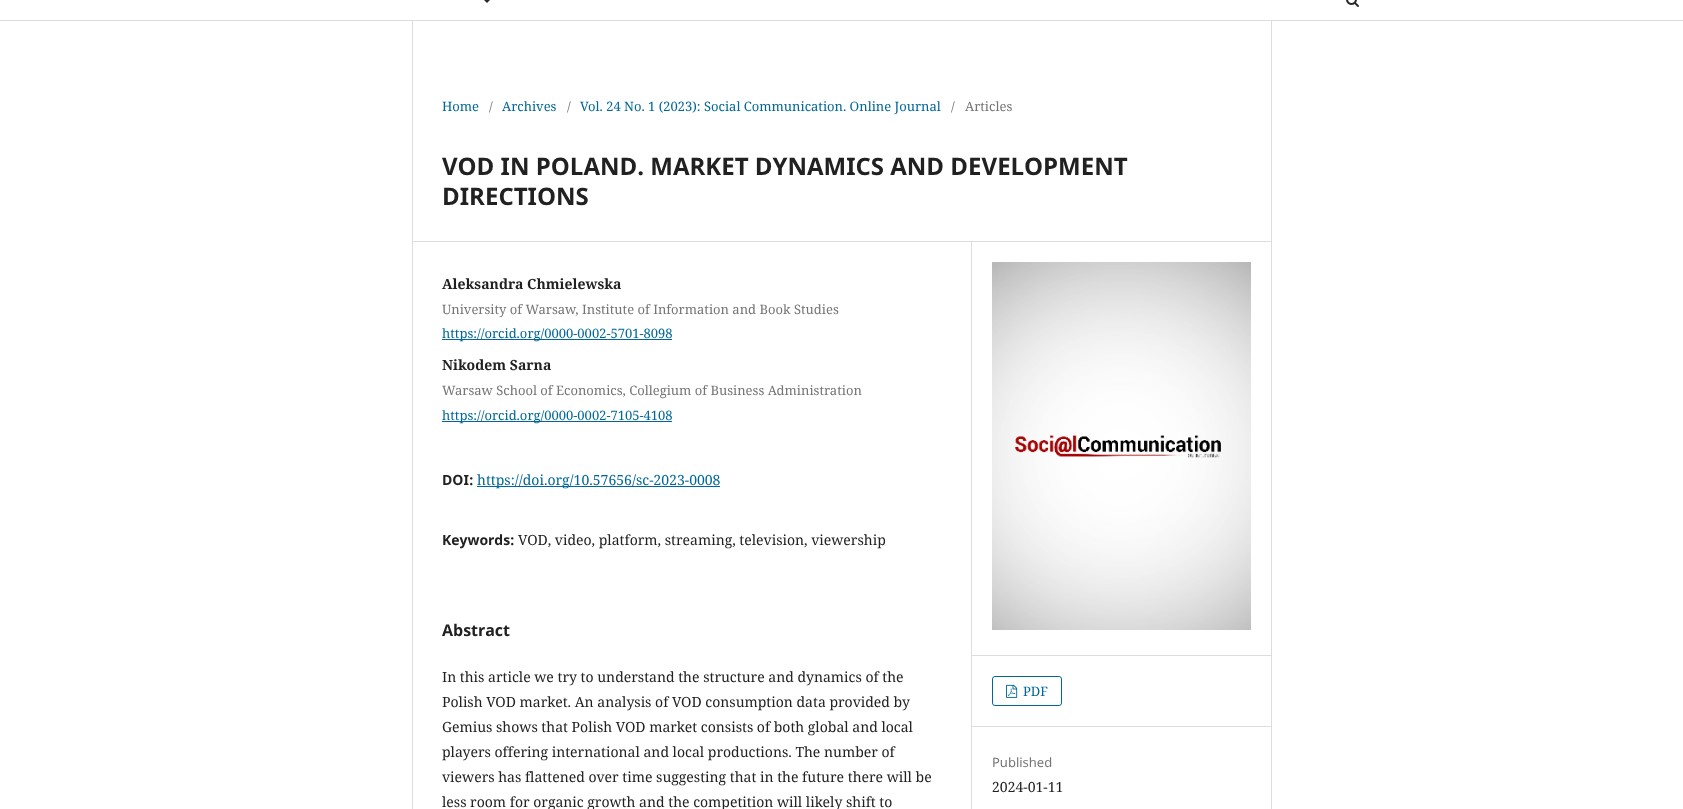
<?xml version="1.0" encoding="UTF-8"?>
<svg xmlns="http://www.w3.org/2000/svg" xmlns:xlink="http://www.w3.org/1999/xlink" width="1683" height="809">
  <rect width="100%" height="100%" fill="#ffffff" />
  <rect y="20" width="1683" height="1" fill="#dddddd" />
  <path d="M 483 -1 h 8 l -4 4 z" fill="#292929" />
  <image x="1346" y="0" width="13" height="7" xlink:href="image1.png" />
  <rect x="412" y="241" width="860" height="1" fill="#dddddd" />
  <rect x="412" y="21" width="1" height="788" fill="#dddddd" />
  <rect x="971" y="242" width="1" height="567" fill="#dddddd" />
  <rect x="442" y="339" width="230" height="1" fill="#006798" />
  <rect x="442" y="421" width="230" height="1" fill="#006798" />
  <rect x="477" y="486" width="243" height="1" fill="#006798" />
  <rect x="972" y="655" width="300" height="1" fill="#dddddd" />
  <image x="992" y="262" width="259" height="368" xlink:href="image2.png" />
  <rect x="972" y="726" width="300" height="1" fill="#dddddd" />
  <rect x="992.5" y="676.5" width="69" height="29" rx="2.5" fill="none" stroke="#006798" />
  <image x="1006" y="684" width="12" height="14" xlink:href="image3.png" />
  <rect x="1271" y="21" width="1" height="788" fill="#dddddd" />
  <text x="442" y="111" style="font-family: Noto Serif; font-size: 13px; fill: #006798">Home</text>
  <text x="489" y="111" style="font-family: Noto Serif; font-size: 13px; fill: #757575">/</text>
  <text x="502" y="111" style="font-family: Noto Serif; font-size: 13px; fill: #006798">Archives</text>
  <text x="567" y="111" style="font-family: Noto Serif; font-size: 13px; fill: #757575">/</text>
  <text x="580" y="111" style="font-family: Noto Serif; font-size: 13px; fill: #006798">Vol. 24 No. 1 (2023): Social Communication. Online Journal</text>
  <text x="951" y="111" style="font-family: Noto Serif; font-size: 13px; fill: #757575">/</text>
  <text x="965" y="111" style="font-family: Noto Serif; font-size: 13px; fill: #757575">Articles</text>
  <text x="442" y="175" style="font-family: Noto Sans; font-size: 24px; font-weight: bold; fill: #212121">VOD IN POLAND. MARKET DYNAMICS AND DEVELOPMENT</text>
  <text x="442" y="205" style="font-family: Noto Sans; font-size: 24px; font-weight: bold; fill: #212121">DIRECTIONS</text>
  <text x="442" y="289" style="font-family: Noto Serif; font-size: 14px; font-weight: bold; fill: #212121">Aleksandra Chmielewska</text>
  <text x="442" y="314" style="font-family: Noto Serif; font-size: 13px; fill: #757575">University of Warsaw, Institute of Information and Book Studies</text>
  <text x="442" y="338" style="font-family: Noto Serif; font-size: 13px; fill: #006798">https://orcid.org/0000-0002-5701-8098</text>
  <text x="442" y="370" style="font-family: Noto Serif; font-size: 14px; font-weight: bold; fill: #212121">Nikodem Sarna</text>
  <text x="442" y="395" style="font-family: Noto Serif; font-size: 13px; fill: #757575">Warsaw School of Economics, Collegium of Business Administration</text>
  <text x="442" y="420" style="font-family: Noto Serif; font-size: 13px; fill: #006798">https://orcid.org/0000-0002-7105-4108</text>
  <text x="442" y="485" style="font-family: Noto Sans; font-size: 14px; font-weight: bold; fill: #212121">DOI:</text>
  <text x="477" y="485" style="font-family: Noto Serif; font-size: 14px; fill: #006798">https://doi.org/10.57656/sc-2023-0008</text>
  <text x="442" y="545" style="font-family: Noto Sans; font-size: 14px; font-weight: bold; fill: #212121">Keywords:</text>
  <text x="518" y="545" style="font-family: Noto Serif; font-size: 14px; fill: #212121">VOD, video, platform, streaming, television, viewership</text>
  <text x="442" y="636" style="font-family: Noto Sans; font-size: 16px; font-weight: bold; fill: #212121">Abstract</text>
  <text x="442" y="682" style="font-family: Noto Serif; font-size: 14px; fill: #212121">In this article we try to understand the structure and dynamics of the</text>
  <text x="442" y="707" style="font-family: Noto Serif; font-size: 14px; fill: #212121">Polish VOD market. An analysis of VOD consumption data provided by</text>
  <text x="442" y="732" style="font-family: Noto Serif; font-size: 14px; fill: #212121">Gemius shows that Polish VOD market consists of both global and local</text>
  <text x="442" y="757" style="font-family: Noto Serif; font-size: 14px; fill: #212121">players offering international and local productions. The number of</text>
  <text x="442" y="782" style="font-family: Noto Serif; font-size: 14px; fill: #212121">viewers has flattened over time suggesting that in the future there will be</text>
  <text x="442" y="807" style="font-family: Noto Serif; font-size: 14px; fill: #212121">less room for organic growth and the competition will likely shift to</text>
  <text x="1023" y="696" style="font-family: Noto Serif; font-size: 13px; fill: #006798">PDF</text>
  <text x="992" y="767" style="font-family: Noto Sans; font-size: 13px; fill: #757575">Published</text>
  <text x="992" y="792" style="font-family: Noto Serif; font-size: 14px; fill: #212121">2024-01-11</text>
</svg>
